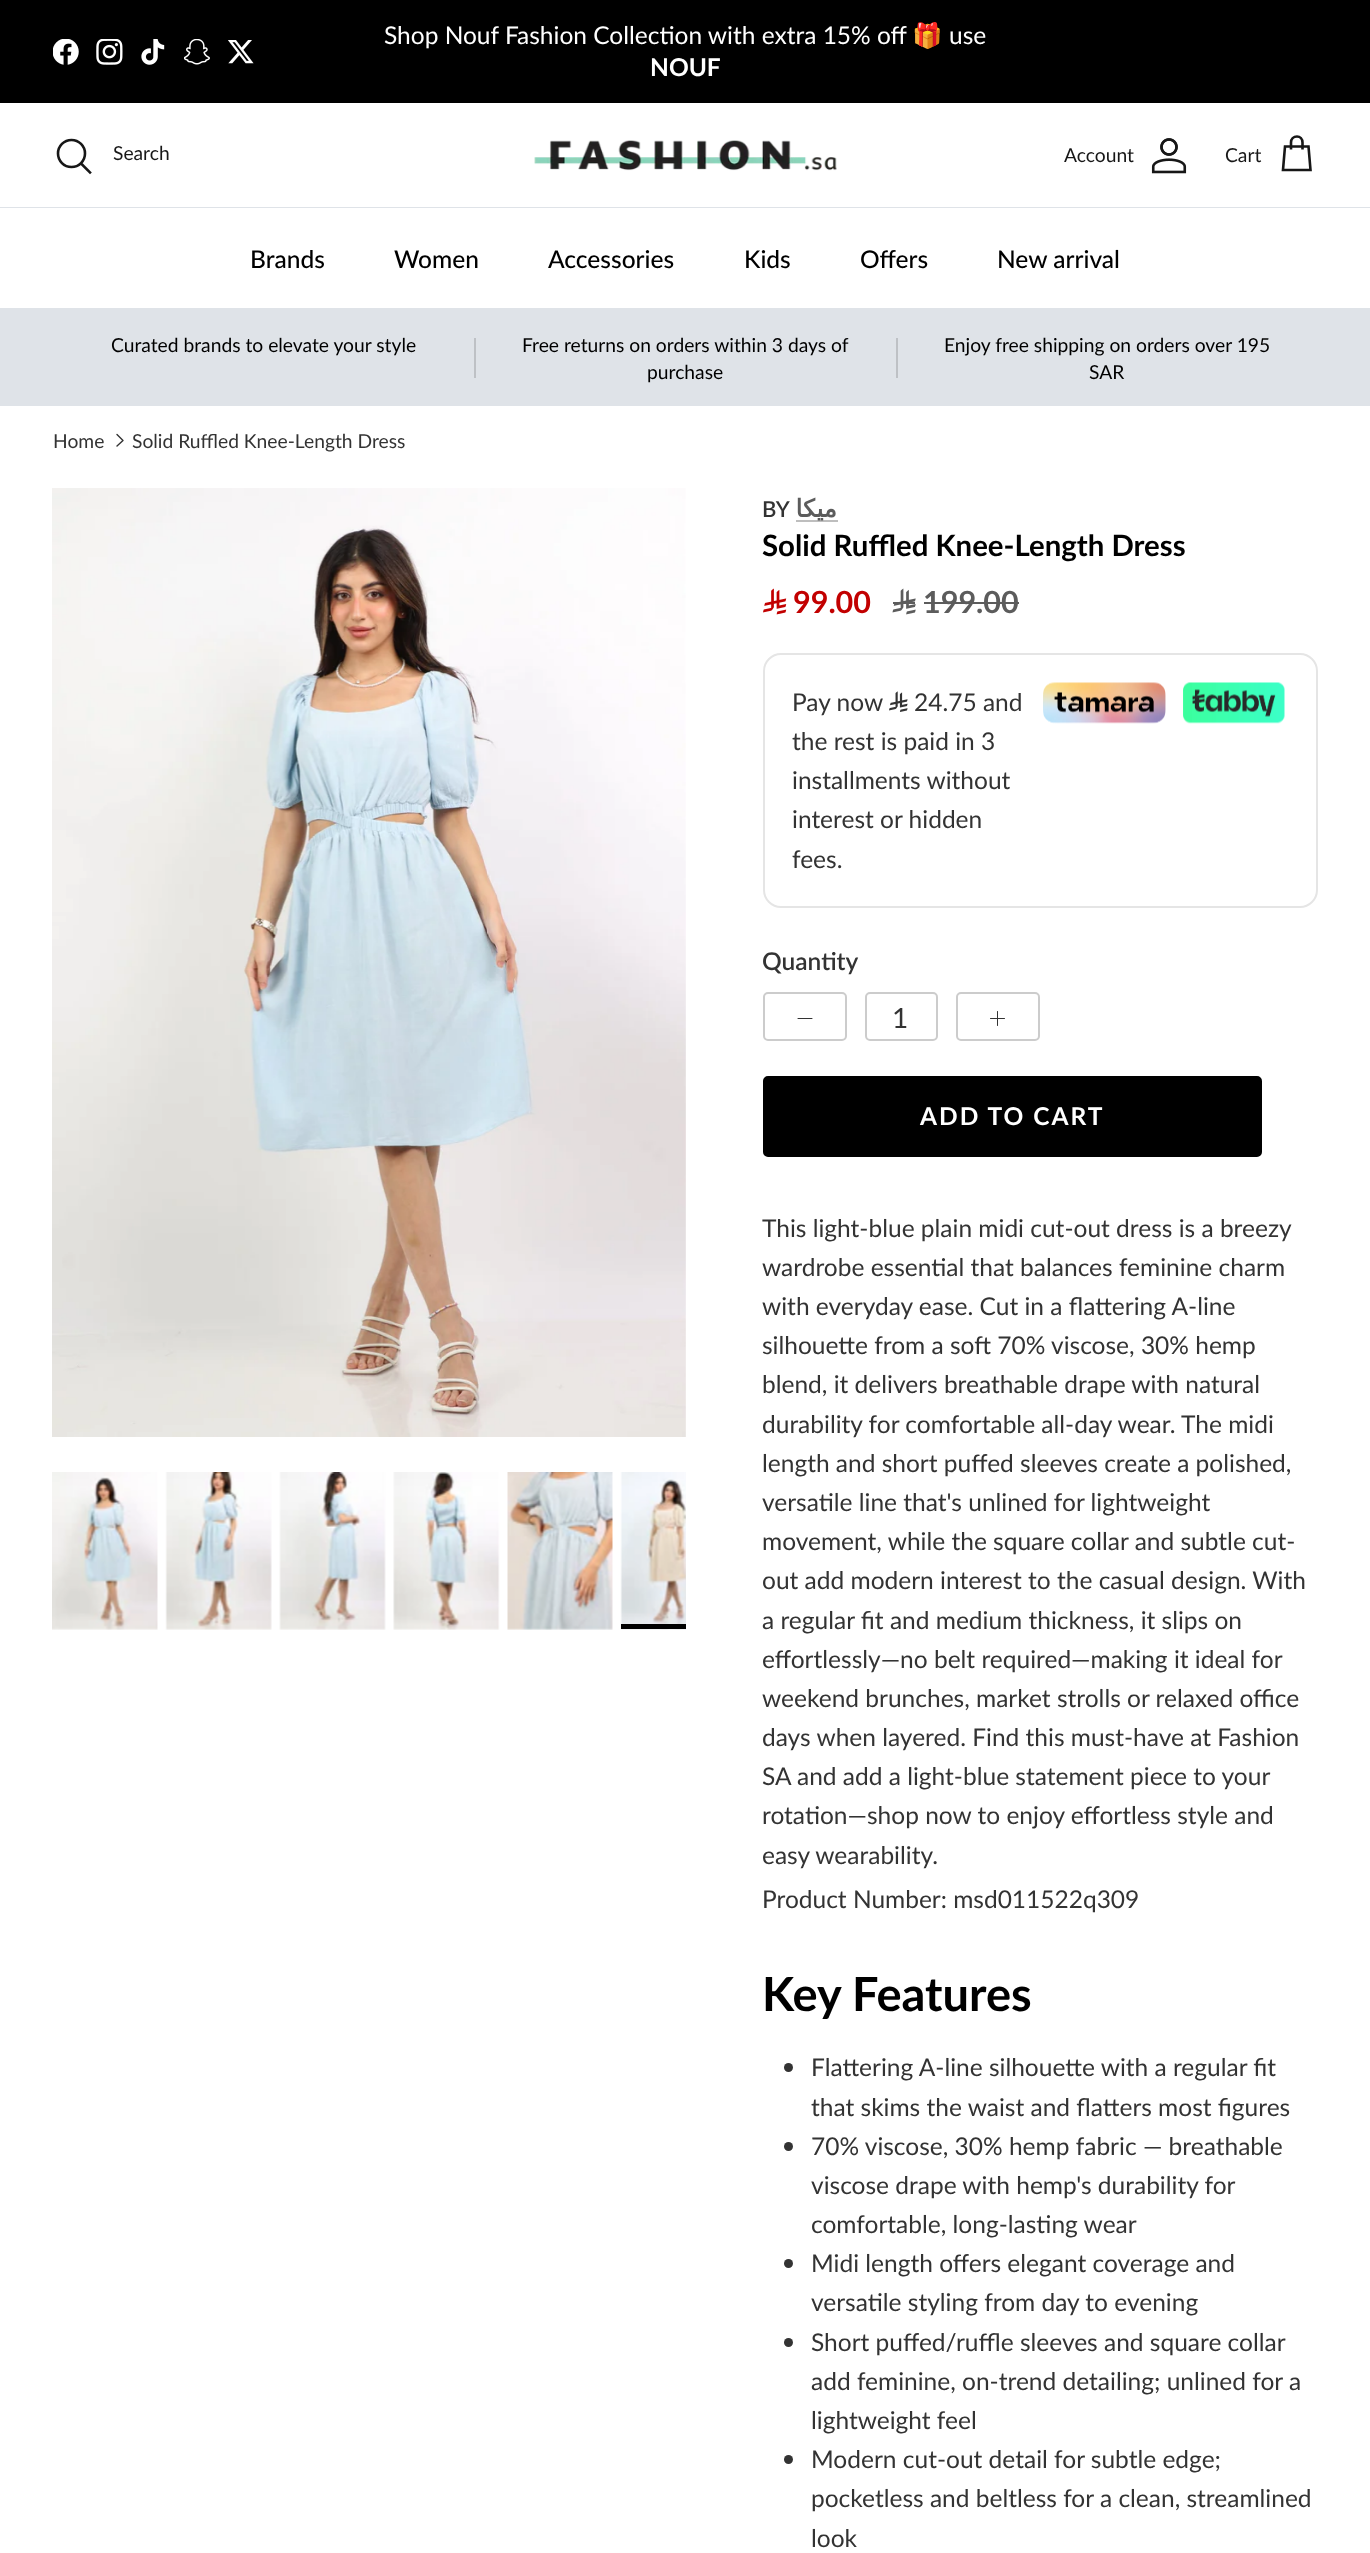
<?xml version="1.0" encoding="UTF-8"?>
<svg xmlns="http://www.w3.org/2000/svg" xmlns:xlink="http://www.w3.org/1999/xlink" width="1370" height="2553">
  <rect width="100%" height="100%" fill="#ffffff" />
  <rect width="1370" height="103" fill="#000000" />
  <image x="53" y="39" width="26" height="26" xlink:href="image1.png" />
  <image x="96" y="39" width="27" height="26" xlink:href="image2.png" />
  <image x="141" y="39" width="24" height="26" xlink:href="image3.png" />
  <image x="184" y="39" width="26" height="26" xlink:href="image4.png" />
  <image x="228" y="40" width="26" height="24" xlink:href="image5.png" />
  <rect y="207" width="1370" height="1" fill="#dfe3e8" />
  <circle cx="71.5" cy="153.5" r="13.5" fill="none" stroke="#171717" stroke-width="2.6" />
  <path d="M 82 164.5 l 8 8" fill="none" stroke="#171717" stroke-width="2.6" stroke-linecap="square" />
  <image x="534" y="140" width="303" height="31" xlink:href="image6.png" />
  <image x="1151" y="138" width="36" height="36" xlink:href="image7.png" />
  <path d="M 1302.5 149.5 v -7 c 0 -3.5 -2.5 -6 -5.5 -6 c -3.5 0 -6 2.5 -6 6 v 7 m -6 -3 h 23.5 l 2 23.5 h -27.5 z" fill="none" stroke="#171717" stroke-width="2.6" />
  <rect y="308" width="1370" height="98" fill="#dfe3e8" />
  <rect x="474" y="338" width="2" height="40" fill="#bec1c5" />
  <rect x="896" y="338" width="2" height="40" fill="#bec1c5" />
  <path d="M 117 446 l 6 -5.5 l -6 -6" fill="none" stroke="#333333" stroke-width="1.4" stroke-linecap="round" stroke-linejoin="round" />
  <image x="52" y="488" width="634" height="949" xlink:href="image8.png" />
  <image x="52" y="1472" width="106" height="158" xlink:href="image9.png" />
  <image x="165" y="1472" width="107" height="158" xlink:href="image10.png" />
  <image x="279" y="1472" width="107" height="158" xlink:href="image11.png" />
  <image x="393" y="1472" width="107" height="158" xlink:href="image12.png" />
  <image x="507" y="1472" width="106" height="158" xlink:href="image13.png" />
  <image x="620" y="1472" width="66" height="158" xlink:href="image14.png" />
  <rect x="621" y="1624" width="65" height="5" fill="#000000" />
  <rect x="796" y="520" width="42" height="2" fill="#bebebe" />
  <image x="763" y="588" width="24" height="27" xlink:href="image15.png" />
  <image x="892" y="588" width="24" height="27" xlink:href="image16.png" />
  <rect x="924" y="602" width="95" height="2" fill="#5c5c5c" />
  <rect x="893" y="602" width="22" height="2" fill="#5c5c5c" />
  <rect x="764" y="654" width="553" height="253" rx="17" fill="none" stroke="#e5e5e5" stroke-width="2" />
  <image x="889" y="691" width="19" height="21" xlink:href="image17.png" />
  <image x="1043" y="682" width="123" height="42" xlink:href="image18.png" />
  <image x="1183" y="682" width="102" height="42" xlink:href="image19.png" />
  <rect x="764" y="993" width="82" height="47" rx="4" fill="none" stroke="#cccccc" stroke-width="2" />
  <path d="M 798 1018.5 h 14" fill="none" stroke="#333333" stroke-linecap="round" stroke-linejoin="round" />
  <rect x="866" y="993" width="71" height="47" rx="4" fill="none" stroke="#cccccc" stroke-width="2" />
  <rect x="957" y="993" width="82" height="47" rx="4" fill="none" stroke="#cccccc" stroke-width="2" />
  <path d="M 997.5 1011.5 v 14 m -7 -7 h 14" fill="none" stroke="#333333" stroke-linecap="round" stroke-linejoin="round" />
  <rect x="764" y="1077" width="497" height="79" rx="4" fill="#000000" stroke="#000000" stroke-width="2" />
  <circle cx="788.5" cy="2067.5" r="4.5" fill="#333333" />
  <circle cx="788.5" cy="2146.5" r="4.5" fill="#333333" />
  <circle cx="788.5" cy="2263.5" r="4.5" fill="#333333" />
  <circle cx="788.5" cy="2342.5" r="4.5" fill="#333333" />
  <circle cx="788.5" cy="2459.5" r="4.5" fill="#333333" />
  <text x="384" y="44" style="font-family: Lato; font-size: 24.5px; fill: #ffffff">Shop Nouf Fashion Collection with extra 15% off</text>
  <text x="912" y="44" style="font-family: Noto Color Emoji; font-size: 24.5px; fill: #ffffff">🎁</text>
  <text x="949" y="44" style="font-family: Lato; font-size: 24.5px; fill: #ffffff">use</text>
  <text x="650" y="76" style="font-family: Lato; font-size: 24.5px; font-weight: bold; fill: #ffffff">NOUF</text>
  <text x="113" y="160" style="font-family: Lato; font-size: 19.25px; fill: #171717">Search</text>
  <text x="1064" y="162" style="font-family: Lato; font-size: 19.25px; fill: #171717">Account</text>
  <text x="1225" y="162" style="font-family: Lato; font-size: 19.25px; fill: #171717">Cart</text>
  <text x="250" y="268" style="font-family: Lato; font-size: 24.5px; font-weight: 500; fill: #000000">Brands</text>
  <text x="394" y="268" style="font-family: Lato; font-size: 24.5px; font-weight: 500; fill: #000000">Women</text>
  <text x="548" y="268" style="font-family: Lato; font-size: 24.5px; font-weight: 500; fill: #000000">Accessories</text>
  <text x="744" y="268" style="font-family: Lato; font-size: 24.5px; font-weight: 500; fill: #000000">Kids</text>
  <text x="860" y="268" style="font-family: Lato; font-size: 24.5px; font-weight: 500; fill: #000000">Offers</text>
  <text x="997" y="268" style="font-family: Lato; font-size: 24.5px; font-weight: 500; fill: #000000">New arrival</text>
  <text x="111" y="352" style="font-family: Lato; font-size: 19.25px; fill: #000000">Curated brands to elevate your style</text>
  <text x="522" y="352" style="font-family: Lato; font-size: 19.25px; fill: #000000">Free returns on orders within 3 days of</text>
  <text x="647" y="379" style="font-family: Lato; font-size: 19.25px; fill: #000000">purchase</text>
  <text x="944" y="352" style="font-family: Lato; font-size: 19.25px; fill: #000000">Enjoy free shipping on orders over 195</text>
  <text x="1089" y="379" style="font-family: Lato; font-size: 19.25px; fill: #000000">SAR</text>
  <text x="53" y="448" style="font-family: Lato; font-size: 19.25px; fill: #333333">Home</text>
  <text x="132" y="448" style="font-family: Lato; font-size: 19.25px; fill: #333333">Solid Ruffled Knee-Length Dress</text>
  <text x="762" y="517" style="font-family: Lato; font-size: 22px; font-weight: 600; fill: #333333">BY</text>
  <text x="837" y="517" style="font-family: DejaVu Sans; font-size: 24.5px; font-weight: bold; direction: rtl; fill: #5c5c5c">ميكا</text>
  <text x="762" y="556" style="font-family: Lato; font-size: 29.4px; font-weight: bold; fill: #000000">Solid Ruffled Knee-Length Dress</text>
  <text x="793" y="613" style="font-family: Lato; font-size: 30.5px; font-weight: bold; fill: #c20000">99.00</text>
  <text x="923" y="613" style="font-family: Lato; font-size: 30.5px; font-weight: bold; fill: #5c5c5c">199.00</text>
  <text x="792" y="711" style="font-family: Lato; font-size: 24.5px; fill: #333333">Pay now</text>
  <text x="914" y="711" style="font-family: Lato; font-size: 24.5px; fill: #333333">24.75 and</text>
  <text x="792" y="750" style="font-family: Lato; font-size: 24.5px; fill: #333333">the rest is paid in 3</text>
  <text x="792" y="789" style="font-family: Lato; font-size: 24.5px; fill: #333333">installments without</text>
  <text x="792" y="828" style="font-family: Lato; font-size: 24.5px; fill: #333333">interest or hidden</text>
  <text x="792" y="868" style="font-family: Lato; font-size: 24.5px; fill: #333333">fees.</text>
  <text x="762" y="970" style="font-family: Lato; font-size: 24.5px; font-weight: 600; fill: #333333">Quantity</text>
  <text x="892" y="1028" style="font-family: Lato; font-size: 28px; fill: #333333">1</text>
  <text x="920" y="1125" style="font-family: Lato; font-size: 24.5px; font-weight: bold; letter-spacing: 2px; fill: #ffffff">ADD TO CART</text>
  <text x="762" y="1237" style="font-family: Lato; font-size: 24.5px; fill: #333333">This light-blue plain midi cut-out dress is a breezy</text>
  <text x="762" y="1276" style="font-family: Lato; font-size: 24.5px; fill: #333333">wardrobe essential that balances feminine charm</text>
  <text x="762" y="1315" style="font-family: Lato; font-size: 24.5px; fill: #333333">with everyday ease. Cut in a flattering A-line</text>
  <text x="762" y="1354" style="font-family: Lato; font-size: 24.5px; fill: #333333">silhouette from a soft 70% viscose, 30% hemp</text>
  <text x="762" y="1393" style="font-family: Lato; font-size: 24.5px; fill: #333333">blend, it delivers breathable drape with natural</text>
  <text x="762" y="1433" style="font-family: Lato; font-size: 24.5px; fill: #333333">durability for comfortable all-day wear. The midi</text>
  <text x="762" y="1472" style="font-family: Lato; font-size: 24.5px; fill: #333333">length and short puffed sleeves create a polished,</text>
  <text x="762" y="1511" style="font-family: Lato; font-size: 24.5px; fill: #333333">versatile line that's unlined for lightweight</text>
  <text x="762" y="1550" style="font-family: Lato; font-size: 24.5px; fill: #333333">movement, while the square collar and subtle cut-</text>
  <text x="762" y="1589" style="font-family: Lato; font-size: 24.5px; fill: #333333">out add modern interest to the casual design. With</text>
  <text x="762" y="1629" style="font-family: Lato; font-size: 24.5px; fill: #333333">a regular fit and medium thickness, it slips on</text>
  <text x="762" y="1668" style="font-family: Lato; font-size: 24.5px; fill: #333333">effortlessly—no belt required—making it ideal for</text>
  <text x="762" y="1707" style="font-family: Lato; font-size: 24.5px; fill: #333333">weekend brunches, market strolls or relaxed office</text>
  <text x="762" y="1746" style="font-family: Lato; font-size: 24.5px; fill: #333333">days when layered. Find this must-have at Fashion</text>
  <text x="762" y="1785" style="font-family: Lato; font-size: 24.5px; fill: #333333">SA and add a light-blue statement piece to your</text>
  <text x="762" y="1824" style="font-family: Lato; font-size: 24.5px; fill: #333333">rotation—shop now to enjoy effortless style and</text>
  <text x="762" y="1864" style="font-family: Lato; font-size: 24.5px; fill: #333333">easy wearability.</text>
  <text x="762" y="1908" style="font-family: Lato; font-size: 24.5px; fill: #333333">Product Number: msd011522q309</text>
  <text x="762" y="2011" style="font-family: Lato; font-size: 47px; font-weight: bold; fill: #000000">Key Features</text>
  <text x="811" y="2076" style="font-family: Lato; font-size: 24.5px; fill: #333333">Flattering A-line silhouette with a regular fit</text>
  <text x="811" y="2116" style="font-family: Lato; font-size: 24.5px; fill: #333333">that skims the waist and flatters most figures</text>
  <text x="811" y="2155" style="font-family: Lato; font-size: 24.5px; fill: #333333">70% viscose, 30% hemp fabric — breathable</text>
  <text x="811" y="2194" style="font-family: Lato; font-size: 24.5px; fill: #333333">viscose drape with hemp's durability for</text>
  <text x="811" y="2233" style="font-family: Lato; font-size: 24.5px; fill: #333333">comfortable, long-lasting wear</text>
  <text x="811" y="2272" style="font-family: Lato; font-size: 24.5px; fill: #333333">Midi length offers elegant coverage and</text>
  <text x="811" y="2311" style="font-family: Lato; font-size: 24.5px; fill: #333333">versatile styling from day to evening</text>
  <text x="811" y="2351" style="font-family: Lato; font-size: 24.5px; fill: #333333">Short puffed/ruffle sleeves and square collar</text>
  <text x="811" y="2390" style="font-family: Lato; font-size: 24.5px; fill: #333333">add feminine, on-trend detailing; unlined for a</text>
  <text x="811" y="2429" style="font-family: Lato; font-size: 24.5px; fill: #333333">lightweight feel</text>
  <text x="811" y="2468" style="font-family: Lato; font-size: 24.5px; fill: #333333">Modern cut-out detail for subtle edge;</text>
  <text x="811" y="2507" style="font-family: Lato; font-size: 24.5px; fill: #333333">pocketless and beltless for a clean, streamlined</text>
  <text x="811" y="2547" style="font-family: Lato; font-size: 24.5px; fill: #333333">look</text>
</svg>
